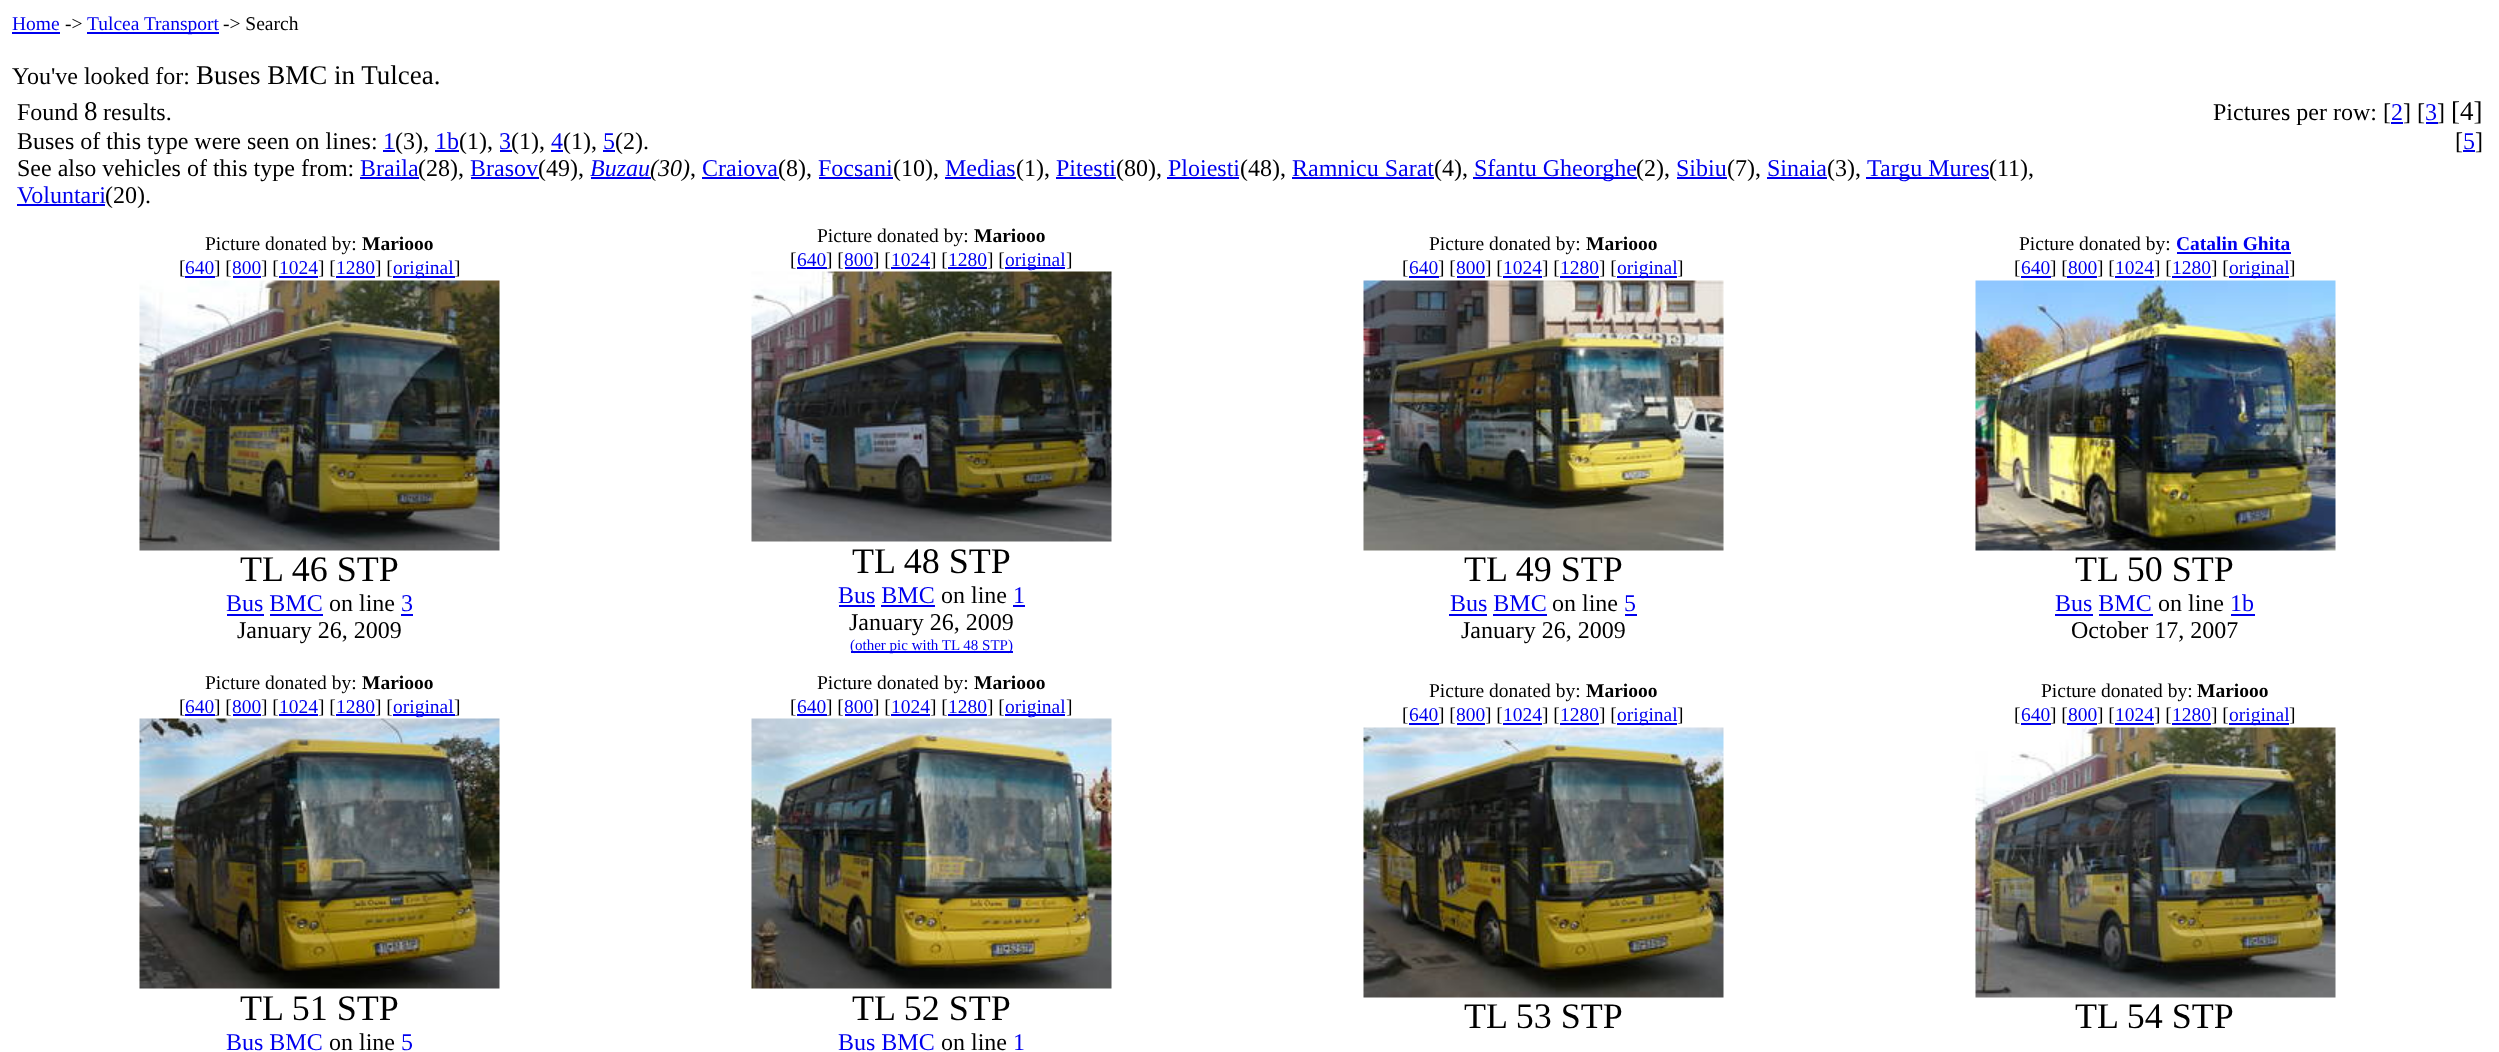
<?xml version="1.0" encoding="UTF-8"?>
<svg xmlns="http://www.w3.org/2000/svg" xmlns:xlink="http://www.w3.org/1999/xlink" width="2499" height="1052">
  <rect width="100%" height="100%" fill="#ffffff" />
  <rect x="12" y="32" width="48" height="2" fill="#0000ee" />
  <rect x="87" y="32" width="132" height="2" fill="#0000ee" />
  <rect x="383" y="150" width="12" height="2" fill="#0000ee" />
  <rect x="435" y="150" width="24" height="2" fill="#0000ee" />
  <rect x="500" y="150" width="12" height="2" fill="#0000ee" />
  <rect x="551" y="150" width="12" height="2" fill="#0000ee" />
  <rect x="603" y="150" width="12" height="2" fill="#0000ee" />
  <rect x="360" y="177" width="59" height="2" fill="#0000ee" />
  <rect x="471" y="177" width="68" height="2" fill="#0000ee" />
  <rect x="591" y="177" width="60" height="2" fill="#0000ee" />
  <rect x="702" y="177" width="77" height="2" fill="#0000ee" />
  <rect x="819" y="177" width="74" height="2" fill="#0000ee" />
  <rect x="945" y="177" width="71" height="2" fill="#0000ee" />
  <rect x="1056" y="177" width="60" height="2" fill="#0000ee" />
  <rect x="1167" y="177" width="72" height="2" fill="#0000ee" />
  <rect x="1292" y="177" width="142" height="2" fill="#0000ee" />
  <rect x="1473" y="177" width="164" height="2" fill="#0000ee" />
  <rect x="1677" y="177" width="50" height="2" fill="#0000ee" />
  <rect x="1767" y="177" width="60" height="2" fill="#0000ee" />
  <rect x="1866" y="177" width="123" height="2" fill="#0000ee" />
  <rect x="17" y="204" width="88" height="2" fill="#0000ee" />
  <rect x="2391" y="122" width="12" height="2" fill="#0000ee" />
  <rect x="2426" y="122" width="12" height="2" fill="#0000ee" />
  <rect x="2463" y="150" width="12" height="2" fill="#0000ee" />
  <rect x="185" y="276" width="30" height="2" fill="#0000ee" />
  <rect x="233" y="276" width="28" height="2" fill="#0000ee" />
  <rect x="279" y="276" width="39" height="2" fill="#0000ee" />
  <rect x="336" y="276" width="39" height="2" fill="#0000ee" />
  <rect x="393" y="276" width="62" height="2" fill="#0000ee" />
  <image x="139" y="280" width="361" height="271" xlink:href="image1.png" />
  <rect x="227" y="614" width="37" height="2" fill="#0000ee" />
  <rect x="401" y="614" width="12" height="2" fill="#0000ee" />
  <rect x="270" y="614" width="53" height="2" fill="#0000ee" />
  <rect x="797" y="267" width="30" height="2" fill="#0000ee" />
  <rect x="845" y="267" width="28" height="2" fill="#0000ee" />
  <rect x="891" y="267" width="39" height="2" fill="#0000ee" />
  <rect x="948" y="267" width="39" height="2" fill="#0000ee" />
  <rect x="1005" y="267" width="60" height="2" fill="#0000ee" />
  <image x="751" y="271" width="361" height="271" xlink:href="image2.png" />
  <rect x="839" y="605" width="36" height="2" fill="#0000ee" />
  <rect x="1013" y="605" width="12" height="2" fill="#0000ee" />
  <rect x="881" y="605" width="54" height="2" fill="#0000ee" />
  <rect x="851" y="651" width="162" height="2" fill="#0000ee" />
  <rect x="1409" y="276" width="30" height="2" fill="#0000ee" />
  <rect x="1457" y="276" width="28" height="2" fill="#0000ee" />
  <rect x="1503" y="276" width="39" height="2" fill="#0000ee" />
  <rect x="1560" y="276" width="39" height="2" fill="#0000ee" />
  <rect x="1617" y="276" width="60" height="2" fill="#0000ee" />
  <image x="1363" y="280" width="361" height="271" xlink:href="image3.png" />
  <rect x="1449" y="614" width="38" height="2" fill="#0000ee" />
  <rect x="1625" y="614" width="12" height="2" fill="#0000ee" />
  <rect x="1493" y="614" width="54" height="2" fill="#0000ee" />
  <rect x="2177" y="252" width="114" height="2" fill="#0000ee" />
  <rect x="2021" y="276" width="30" height="2" fill="#0000ee" />
  <rect x="2067" y="276" width="30" height="2" fill="#0000ee" />
  <rect x="2115" y="276" width="39" height="2" fill="#0000ee" />
  <rect x="2172" y="276" width="39" height="2" fill="#0000ee" />
  <rect x="2229" y="276" width="60" height="2" fill="#0000ee" />
  <image x="1975" y="280" width="361" height="271" xlink:href="image4.png" />
  <rect x="2055" y="614" width="38" height="2" fill="#0000ee" />
  <rect x="2231" y="614" width="24" height="2" fill="#0000ee" />
  <rect x="2099" y="614" width="54" height="2" fill="#0000ee" />
  <rect x="185" y="714" width="30" height="2" fill="#0000ee" />
  <rect x="233" y="714" width="28" height="2" fill="#0000ee" />
  <rect x="279" y="714" width="39" height="2" fill="#0000ee" />
  <rect x="336" y="714" width="39" height="2" fill="#0000ee" />
  <rect x="393" y="714" width="62" height="2" fill="#0000ee" />
  <image x="139" y="718" width="361" height="271" xlink:href="image5.png" />
  <rect x="797" y="714" width="30" height="2" fill="#0000ee" />
  <rect x="845" y="714" width="28" height="2" fill="#0000ee" />
  <rect x="891" y="714" width="39" height="2" fill="#0000ee" />
  <rect x="948" y="714" width="39" height="2" fill="#0000ee" />
  <rect x="1005" y="714" width="60" height="2" fill="#0000ee" />
  <image x="751" y="718" width="361" height="271" xlink:href="image6.png" />
  <rect x="1409" y="723" width="30" height="2" fill="#0000ee" />
  <rect x="1457" y="723" width="28" height="2" fill="#0000ee" />
  <rect x="1503" y="723" width="39" height="2" fill="#0000ee" />
  <rect x="1560" y="723" width="39" height="2" fill="#0000ee" />
  <rect x="1617" y="723" width="60" height="2" fill="#0000ee" />
  <image x="1363" y="727" width="361" height="271" xlink:href="image7.png" />
  <rect x="2021" y="723" width="30" height="2" fill="#0000ee" />
  <rect x="2067" y="723" width="30" height="2" fill="#0000ee" />
  <rect x="2115" y="723" width="39" height="2" fill="#0000ee" />
  <rect x="2172" y="723" width="39" height="2" fill="#0000ee" />
  <rect x="2229" y="723" width="60" height="2" fill="#0000ee" />
  <image x="1975" y="727" width="361" height="271" xlink:href="image8.png" />
  <text x="12" y="30" style="font-family: Liberation Serif; font-size: 19.5px; fill: #0000ee">Home</text>
  <text x="65" y="30" style="font-family: Liberation Serif; font-size: 19.5px; fill: #000000">-&gt;</text>
  <text x="87" y="30" style="font-family: Liberation Serif; font-size: 19.5px; fill: #0000ee">Tulcea Transport</text>
  <text x="223" y="30" style="font-family: Liberation Serif; font-size: 19.5px; fill: #000000">-&gt; Search</text>
  <text x="12" y="84" style="font-family: Liberation Serif; font-size: 24px; fill: #000000">You've looked for:</text>
  <text x="196" y="84" style="font-family: Liberation Serif; font-size: 27px; fill: #000000">Buses BMC in Tulcea.</text>
  <text x="17" y="120" style="font-family: Liberation Serif; font-size: 24px; fill: #000000">Found</text>
  <text x="84" y="120" style="font-family: Liberation Serif; font-size: 27px; fill: #000000">8</text>
  <text x="103" y="120" style="font-family: Liberation Serif; font-size: 24px; fill: #000000">results.</text>
  <text x="17" y="149" style="font-family: Liberation Serif; font-size: 24px; fill: #000000">Buses of this type were seen on lines:</text>
  <text x="383" y="149" style="font-family: Liberation Serif; font-size: 24px; fill: #0000ee">1</text>
  <text x="395" y="149" style="font-family: Liberation Serif; font-size: 24px; fill: #000000">(3),</text>
  <text x="435" y="149" style="font-family: Liberation Serif; font-size: 24px; fill: #0000ee">1b</text>
  <text x="459" y="149" style="font-family: Liberation Serif; font-size: 24px; fill: #000000">(1),</text>
  <text x="499" y="149" style="font-family: Liberation Serif; font-size: 24px; fill: #0000ee">3</text>
  <text x="511" y="149" style="font-family: Liberation Serif; font-size: 24px; fill: #000000">(1),</text>
  <text x="551" y="149" style="font-family: Liberation Serif; font-size: 24px; fill: #0000ee">4</text>
  <text x="563" y="149" style="font-family: Liberation Serif; font-size: 24px; fill: #000000">(1),</text>
  <text x="603" y="149" style="font-family: Liberation Serif; font-size: 24px; fill: #0000ee">5</text>
  <text x="615" y="149" style="font-family: Liberation Serif; font-size: 24px; fill: #000000">(2).</text>
  <text x="17" y="176" style="font-family: Liberation Serif; font-size: 24px; fill: #000000">See also vehicles of this type from:</text>
  <text x="360" y="176" style="font-family: Liberation Serif; font-size: 24px; fill: #0000ee">Braila</text>
  <text x="418" y="176" style="font-family: Liberation Serif; font-size: 24px; fill: #000000">(28),</text>
  <text x="470" y="176" style="font-family: Liberation Serif; font-size: 24px; fill: #0000ee">Brasov</text>
  <text x="538" y="176" style="font-family: Liberation Serif; font-size: 24px; fill: #000000">(49),</text>
  <text x="590" y="176" style="font-family: Liberation Serif; font-size: 24px; font-style: italic; fill: #0000ee">Buzau</text>
  <text x="650" y="176" style="font-family: Liberation Serif; font-size: 24px; font-style: italic; fill: #000000">(30)</text>
  <text x="690" y="176" style="font-family: Liberation Serif; font-size: 24px; fill: #000000">,</text>
  <text x="702" y="176" style="font-family: Liberation Serif; font-size: 24px; fill: #0000ee">Craiova</text>
  <text x="778" y="176" style="font-family: Liberation Serif; font-size: 24px; fill: #000000">(8),</text>
  <text x="818" y="176" style="font-family: Liberation Serif; font-size: 24px; fill: #0000ee">Focsani</text>
  <text x="893" y="176" style="font-family: Liberation Serif; font-size: 24px; fill: #000000">(10),</text>
  <text x="945" y="176" style="font-family: Liberation Serif; font-size: 24px; fill: #0000ee">Medias</text>
  <text x="1016" y="176" style="font-family: Liberation Serif; font-size: 24px; fill: #000000">(1),</text>
  <text x="1056" y="176" style="font-family: Liberation Serif; font-size: 24px; fill: #0000ee">Pitesti</text>
  <text x="1116" y="176" style="font-family: Liberation Serif; font-size: 24px; fill: #000000">(80),</text>
  <text x="1168" y="176" style="font-family: Liberation Serif; font-size: 24px; fill: #0000ee">Ploiesti</text>
  <text x="1240" y="176" style="font-family: Liberation Serif; font-size: 24px; fill: #000000">(48),</text>
  <text x="1292" y="176" style="font-family: Liberation Serif; font-size: 24px; fill: #0000ee">Ramnicu Sarat</text>
  <text x="1434" y="176" style="font-family: Liberation Serif; font-size: 24px; fill: #000000">(4),</text>
  <text x="1474" y="176" style="font-family: Liberation Serif; font-size: 24px; fill: #0000ee">Sfantu Gheorghe</text>
  <text x="1636" y="176" style="font-family: Liberation Serif; font-size: 24px; fill: #000000">(2),</text>
  <text x="1676" y="176" style="font-family: Liberation Serif; font-size: 24px; fill: #0000ee">Sibiu</text>
  <text x="1727" y="176" style="font-family: Liberation Serif; font-size: 24px; fill: #000000">(7),</text>
  <text x="1767" y="176" style="font-family: Liberation Serif; font-size: 24px; fill: #0000ee">Sinaia</text>
  <text x="1827" y="176" style="font-family: Liberation Serif; font-size: 24px; fill: #000000">(3),</text>
  <text x="1867" y="176" style="font-family: Liberation Serif; font-size: 24px; fill: #0000ee">Targu Mures</text>
  <text x="1989" y="176" style="font-family: Liberation Serif; font-size: 24px; fill: #000000">(11),</text>
  <text x="17" y="203" style="font-family: Liberation Serif; font-size: 24px; fill: #0000ee">Voluntari</text>
  <text x="105" y="203" style="font-family: Liberation Serif; font-size: 24px; fill: #000000">(20).</text>
  <text x="2213" y="120" style="font-family: Liberation Serif; font-size: 24px; fill: #000000">Pictures per row: [</text>
  <text x="2391" y="120" style="font-family: Liberation Serif; font-size: 24px; fill: #0000ee">2</text>
  <text x="2403" y="120" style="font-family: Liberation Serif; font-size: 24px; fill: #000000">] [</text>
  <text x="2425" y="120" style="font-family: Liberation Serif; font-size: 24px; fill: #0000ee">3</text>
  <text x="2437" y="120" style="font-family: Liberation Serif; font-size: 24px; fill: #000000">]</text>
  <text x="2451" y="120" style="font-family: Liberation Serif; font-size: 27px; fill: #000000">[4]</text>
  <text x="2455" y="149" style="font-family: Liberation Serif; font-size: 24px; fill: #000000">[</text>
  <text x="2463" y="149" style="font-family: Liberation Serif; font-size: 24px; fill: #0000ee">5</text>
  <text x="2475" y="149" style="font-family: Liberation Serif; font-size: 24px; fill: #000000">]</text>
  <text x="205" y="250" style="font-family: Liberation Serif; font-size: 19.5px; fill: #000000">Picture donated by:</text>
  <text x="362" y="250" style="font-family: Liberation Serif; font-size: 19.5px; font-weight: bold; fill: #000000">Mariooo</text>
  <text x="179" y="274" style="font-family: Liberation Serif; font-size: 19.5px; fill: #000000">[</text>
  <text x="185" y="274" style="font-family: Liberation Serif; font-size: 19.5px; fill: #0000ee">640</text>
  <text x="214" y="274" style="font-family: Liberation Serif; font-size: 19.5px; fill: #000000">] [</text>
  <text x="232" y="274" style="font-family: Liberation Serif; font-size: 19.5px; fill: #0000ee">800</text>
  <text x="261" y="274" style="font-family: Liberation Serif; font-size: 19.5px; fill: #000000">] [</text>
  <text x="279" y="274" style="font-family: Liberation Serif; font-size: 19.5px; fill: #0000ee">1024</text>
  <text x="318" y="274" style="font-family: Liberation Serif; font-size: 19.5px; fill: #000000">] [</text>
  <text x="336" y="274" style="font-family: Liberation Serif; font-size: 19.5px; fill: #0000ee">1280</text>
  <text x="375" y="274" style="font-family: Liberation Serif; font-size: 19.5px; fill: #000000">] [</text>
  <text x="393" y="274" style="font-family: Liberation Serif; font-size: 19.5px; fill: #0000ee">original</text>
  <text x="454" y="274" style="font-family: Liberation Serif; font-size: 19.5px; fill: #000000">]</text>
  <text x="240" y="581" style="font-family: Liberation Serif; font-size: 36px; fill: #000000">TL 46 STP</text>
  <text x="226" y="611" style="font-family: Liberation Serif; font-size: 24px; fill: #0000ee">Bus BMC</text>
  <text x="329" y="611" style="font-family: Liberation Serif; font-size: 24px; fill: #000000">on line</text>
  <text x="401" y="611" style="font-family: Liberation Serif; font-size: 24px; fill: #0000ee">3</text>
  <text x="237" y="638" style="font-family: Liberation Serif; font-size: 24px; fill: #000000">January 26, 2009</text>
  <text x="817" y="242" style="font-family: Liberation Serif; font-size: 19.5px; fill: #000000">Picture donated by:</text>
  <text x="974" y="242" style="font-family: Liberation Serif; font-size: 19.5px; font-weight: bold; fill: #000000">Mariooo</text>
  <text x="790" y="266" style="font-family: Liberation Serif; font-size: 19.5px; fill: #000000">[</text>
  <text x="797" y="266" style="font-family: Liberation Serif; font-size: 19.5px; fill: #0000ee">640</text>
  <text x="826" y="266" style="font-family: Liberation Serif; font-size: 19.5px; fill: #000000">] [</text>
  <text x="844" y="266" style="font-family: Liberation Serif; font-size: 19.5px; fill: #0000ee">800</text>
  <text x="873" y="266" style="font-family: Liberation Serif; font-size: 19.5px; fill: #000000">] [</text>
  <text x="891" y="266" style="font-family: Liberation Serif; font-size: 19.5px; fill: #0000ee">1024</text>
  <text x="930" y="266" style="font-family: Liberation Serif; font-size: 19.5px; fill: #000000">] [</text>
  <text x="948" y="266" style="font-family: Liberation Serif; font-size: 19.5px; fill: #0000ee">1280</text>
  <text x="987" y="266" style="font-family: Liberation Serif; font-size: 19.5px; fill: #000000">] [</text>
  <text x="1005" y="266" style="font-family: Liberation Serif; font-size: 19.5px; fill: #0000ee">original</text>
  <text x="1066" y="266" style="font-family: Liberation Serif; font-size: 19.5px; fill: #000000">]</text>
  <text x="852" y="573" style="font-family: Liberation Serif; font-size: 36px; fill: #000000">TL 48 STP</text>
  <text x="838" y="603" style="font-family: Liberation Serif; font-size: 24px; fill: #0000ee">Bus BMC</text>
  <text x="941" y="603" style="font-family: Liberation Serif; font-size: 24px; fill: #000000">on line</text>
  <text x="1013" y="603" style="font-family: Liberation Serif; font-size: 24px; fill: #0000ee">1</text>
  <text x="849" y="630" style="font-family: Liberation Serif; font-size: 24px; fill: #000000">January 26, 2009</text>
  <text x="850" y="650" style="font-family: Liberation Serif; font-size: 15px; fill: #0000ee">(other pic with TL 48 STP)</text>
  <text x="1429" y="250" style="font-family: Liberation Serif; font-size: 19.5px; fill: #000000">Picture donated by:</text>
  <text x="1586" y="250" style="font-family: Liberation Serif; font-size: 19.5px; font-weight: bold; fill: #000000">Mariooo</text>
  <text x="1402" y="274" style="font-family: Liberation Serif; font-size: 19.5px; fill: #000000">[</text>
  <text x="1409" y="274" style="font-family: Liberation Serif; font-size: 19.5px; fill: #0000ee">640</text>
  <text x="1438" y="274" style="font-family: Liberation Serif; font-size: 19.5px; fill: #000000">] [</text>
  <text x="1456" y="274" style="font-family: Liberation Serif; font-size: 19.5px; fill: #0000ee">800</text>
  <text x="1485" y="274" style="font-family: Liberation Serif; font-size: 19.5px; fill: #000000">] [</text>
  <text x="1503" y="274" style="font-family: Liberation Serif; font-size: 19.5px; fill: #0000ee">1024</text>
  <text x="1542" y="274" style="font-family: Liberation Serif; font-size: 19.5px; fill: #000000">] [</text>
  <text x="1560" y="274" style="font-family: Liberation Serif; font-size: 19.5px; fill: #0000ee">1280</text>
  <text x="1599" y="274" style="font-family: Liberation Serif; font-size: 19.5px; fill: #000000">] [</text>
  <text x="1617" y="274" style="font-family: Liberation Serif; font-size: 19.5px; fill: #0000ee">original</text>
  <text x="1677" y="274" style="font-family: Liberation Serif; font-size: 19.5px; fill: #000000">]</text>
  <text x="1464" y="581" style="font-family: Liberation Serif; font-size: 36px; fill: #000000">TL 49 STP</text>
  <text x="1450" y="611" style="font-family: Liberation Serif; font-size: 24px; fill: #0000ee">Bus BMC</text>
  <text x="1552" y="611" style="font-family: Liberation Serif; font-size: 24px; fill: #000000">on line</text>
  <text x="1624" y="611" style="font-family: Liberation Serif; font-size: 24px; fill: #0000ee">5</text>
  <text x="1461" y="638" style="font-family: Liberation Serif; font-size: 24px; fill: #000000">January 26, 2009</text>
  <text x="2019" y="250" style="font-family: Liberation Serif; font-size: 19.5px; fill: #000000">Picture donated by:</text>
  <text x="2176" y="250" style="font-family: Liberation Serif; font-size: 19.5px; font-weight: bold; fill: #0000ee">Catalin Ghita</text>
  <text x="2014" y="274" style="font-family: Liberation Serif; font-size: 19.5px; fill: #000000">[</text>
  <text x="2021" y="274" style="font-family: Liberation Serif; font-size: 19.5px; fill: #0000ee">640</text>
  <text x="2050" y="274" style="font-family: Liberation Serif; font-size: 19.5px; fill: #000000">] [</text>
  <text x="2068" y="274" style="font-family: Liberation Serif; font-size: 19.5px; fill: #0000ee">800</text>
  <text x="2097" y="274" style="font-family: Liberation Serif; font-size: 19.5px; fill: #000000">] [</text>
  <text x="2115" y="274" style="font-family: Liberation Serif; font-size: 19.5px; fill: #0000ee">1024</text>
  <text x="2154" y="274" style="font-family: Liberation Serif; font-size: 19.5px; fill: #000000">] [</text>
  <text x="2172" y="274" style="font-family: Liberation Serif; font-size: 19.5px; fill: #0000ee">1280</text>
  <text x="2211" y="274" style="font-family: Liberation Serif; font-size: 19.5px; fill: #000000">] [</text>
  <text x="2229" y="274" style="font-family: Liberation Serif; font-size: 19.5px; fill: #0000ee">original</text>
  <text x="2289" y="274" style="font-family: Liberation Serif; font-size: 19.5px; fill: #000000">]</text>
  <text x="2075" y="581" style="font-family: Liberation Serif; font-size: 36px; fill: #000000">TL 50 STP</text>
  <text x="2055" y="611" style="font-family: Liberation Serif; font-size: 24px; fill: #0000ee">Bus BMC</text>
  <text x="2158" y="611" style="font-family: Liberation Serif; font-size: 24px; fill: #000000">on line</text>
  <text x="2230" y="611" style="font-family: Liberation Serif; font-size: 24px; fill: #0000ee">1b</text>
  <text x="2071" y="638" style="font-family: Liberation Serif; font-size: 24px; fill: #000000">October 17, 2007</text>
  <text x="205" y="689" style="font-family: Liberation Serif; font-size: 19.5px; fill: #000000">Picture donated by:</text>
  <text x="362" y="689" style="font-family: Liberation Serif; font-size: 19.5px; font-weight: bold; fill: #000000">Mariooo</text>
  <text x="179" y="713" style="font-family: Liberation Serif; font-size: 19.5px; fill: #000000">[</text>
  <text x="185" y="713" style="font-family: Liberation Serif; font-size: 19.5px; fill: #0000ee">640</text>
  <text x="214" y="713" style="font-family: Liberation Serif; font-size: 19.5px; fill: #000000">] [</text>
  <text x="232" y="713" style="font-family: Liberation Serif; font-size: 19.5px; fill: #0000ee">800</text>
  <text x="261" y="713" style="font-family: Liberation Serif; font-size: 19.5px; fill: #000000">] [</text>
  <text x="279" y="713" style="font-family: Liberation Serif; font-size: 19.5px; fill: #0000ee">1024</text>
  <text x="318" y="713" style="font-family: Liberation Serif; font-size: 19.5px; fill: #000000">] [</text>
  <text x="336" y="713" style="font-family: Liberation Serif; font-size: 19.5px; fill: #0000ee">1280</text>
  <text x="375" y="713" style="font-family: Liberation Serif; font-size: 19.5px; fill: #000000">] [</text>
  <text x="393" y="713" style="font-family: Liberation Serif; font-size: 19.5px; fill: #0000ee">original</text>
  <text x="454" y="713" style="font-family: Liberation Serif; font-size: 19.5px; fill: #000000">]</text>
  <text x="240" y="1020" style="font-family: Liberation Serif; font-size: 36px; fill: #000000">TL 51 STP</text>
  <text x="226" y="1050" style="font-family: Liberation Serif; font-size: 24px; fill: #0000ee">Bus BMC</text>
  <text x="329" y="1050" style="font-family: Liberation Serif; font-size: 24px; fill: #000000">on line</text>
  <text x="401" y="1050" style="font-family: Liberation Serif; font-size: 24px; fill: #0000ee">5</text>
  <text x="817" y="689" style="font-family: Liberation Serif; font-size: 19.5px; fill: #000000">Picture donated by:</text>
  <text x="974" y="689" style="font-family: Liberation Serif; font-size: 19.5px; font-weight: bold; fill: #000000">Mariooo</text>
  <text x="790" y="713" style="font-family: Liberation Serif; font-size: 19.5px; fill: #000000">[</text>
  <text x="797" y="713" style="font-family: Liberation Serif; font-size: 19.5px; fill: #0000ee">640</text>
  <text x="826" y="713" style="font-family: Liberation Serif; font-size: 19.5px; fill: #000000">] [</text>
  <text x="844" y="713" style="font-family: Liberation Serif; font-size: 19.5px; fill: #0000ee">800</text>
  <text x="873" y="713" style="font-family: Liberation Serif; font-size: 19.5px; fill: #000000">] [</text>
  <text x="891" y="713" style="font-family: Liberation Serif; font-size: 19.5px; fill: #0000ee">1024</text>
  <text x="930" y="713" style="font-family: Liberation Serif; font-size: 19.5px; fill: #000000">] [</text>
  <text x="948" y="713" style="font-family: Liberation Serif; font-size: 19.5px; fill: #0000ee">1280</text>
  <text x="987" y="713" style="font-family: Liberation Serif; font-size: 19.5px; fill: #000000">] [</text>
  <text x="1005" y="713" style="font-family: Liberation Serif; font-size: 19.5px; fill: #0000ee">original</text>
  <text x="1066" y="713" style="font-family: Liberation Serif; font-size: 19.5px; fill: #000000">]</text>
  <text x="852" y="1020" style="font-family: Liberation Serif; font-size: 36px; fill: #000000">TL 52 STP</text>
  <text x="838" y="1050" style="font-family: Liberation Serif; font-size: 24px; fill: #0000ee">Bus BMC</text>
  <text x="941" y="1050" style="font-family: Liberation Serif; font-size: 24px; fill: #000000">on line</text>
  <text x="1013" y="1050" style="font-family: Liberation Serif; font-size: 24px; fill: #0000ee">1</text>
  <text x="1429" y="697" style="font-family: Liberation Serif; font-size: 19.5px; fill: #000000">Picture donated by:</text>
  <text x="1586" y="697" style="font-family: Liberation Serif; font-size: 19.5px; font-weight: bold; fill: #000000">Mariooo</text>
  <text x="1402" y="721" style="font-family: Liberation Serif; font-size: 19.5px; fill: #000000">[</text>
  <text x="1409" y="721" style="font-family: Liberation Serif; font-size: 19.5px; fill: #0000ee">640</text>
  <text x="1438" y="721" style="font-family: Liberation Serif; font-size: 19.5px; fill: #000000">] [</text>
  <text x="1456" y="721" style="font-family: Liberation Serif; font-size: 19.5px; fill: #0000ee">800</text>
  <text x="1485" y="721" style="font-family: Liberation Serif; font-size: 19.5px; fill: #000000">] [</text>
  <text x="1503" y="721" style="font-family: Liberation Serif; font-size: 19.5px; fill: #0000ee">1024</text>
  <text x="1542" y="721" style="font-family: Liberation Serif; font-size: 19.5px; fill: #000000">] [</text>
  <text x="1560" y="721" style="font-family: Liberation Serif; font-size: 19.5px; fill: #0000ee">1280</text>
  <text x="1599" y="721" style="font-family: Liberation Serif; font-size: 19.5px; fill: #000000">] [</text>
  <text x="1617" y="721" style="font-family: Liberation Serif; font-size: 19.5px; fill: #0000ee">original</text>
  <text x="1677" y="721" style="font-family: Liberation Serif; font-size: 19.5px; fill: #000000">]</text>
  <text x="1464" y="1028" style="font-family: Liberation Serif; font-size: 36px; fill: #000000">TL 53 STP</text>
  <text x="2041" y="697" style="font-family: Liberation Serif; font-size: 19.5px; fill: #000000">Picture donated by:</text>
  <text x="2197" y="697" style="font-family: Liberation Serif; font-size: 19.5px; font-weight: bold; fill: #000000">Mariooo</text>
  <text x="2014" y="721" style="font-family: Liberation Serif; font-size: 19.5px; fill: #000000">[</text>
  <text x="2021" y="721" style="font-family: Liberation Serif; font-size: 19.5px; fill: #0000ee">640</text>
  <text x="2050" y="721" style="font-family: Liberation Serif; font-size: 19.5px; fill: #000000">] [</text>
  <text x="2068" y="721" style="font-family: Liberation Serif; font-size: 19.5px; fill: #0000ee">800</text>
  <text x="2097" y="721" style="font-family: Liberation Serif; font-size: 19.5px; fill: #000000">] [</text>
  <text x="2115" y="721" style="font-family: Liberation Serif; font-size: 19.5px; fill: #0000ee">1024</text>
  <text x="2154" y="721" style="font-family: Liberation Serif; font-size: 19.5px; fill: #000000">] [</text>
  <text x="2172" y="721" style="font-family: Liberation Serif; font-size: 19.5px; fill: #0000ee">1280</text>
  <text x="2211" y="721" style="font-family: Liberation Serif; font-size: 19.5px; fill: #000000">] [</text>
  <text x="2229" y="721" style="font-family: Liberation Serif; font-size: 19.5px; fill: #0000ee">original</text>
  <text x="2289" y="721" style="font-family: Liberation Serif; font-size: 19.5px; fill: #000000">]</text>
  <text x="2075" y="1028" style="font-family: Liberation Serif; font-size: 36px; fill: #000000">TL 54 STP</text>
</svg>
